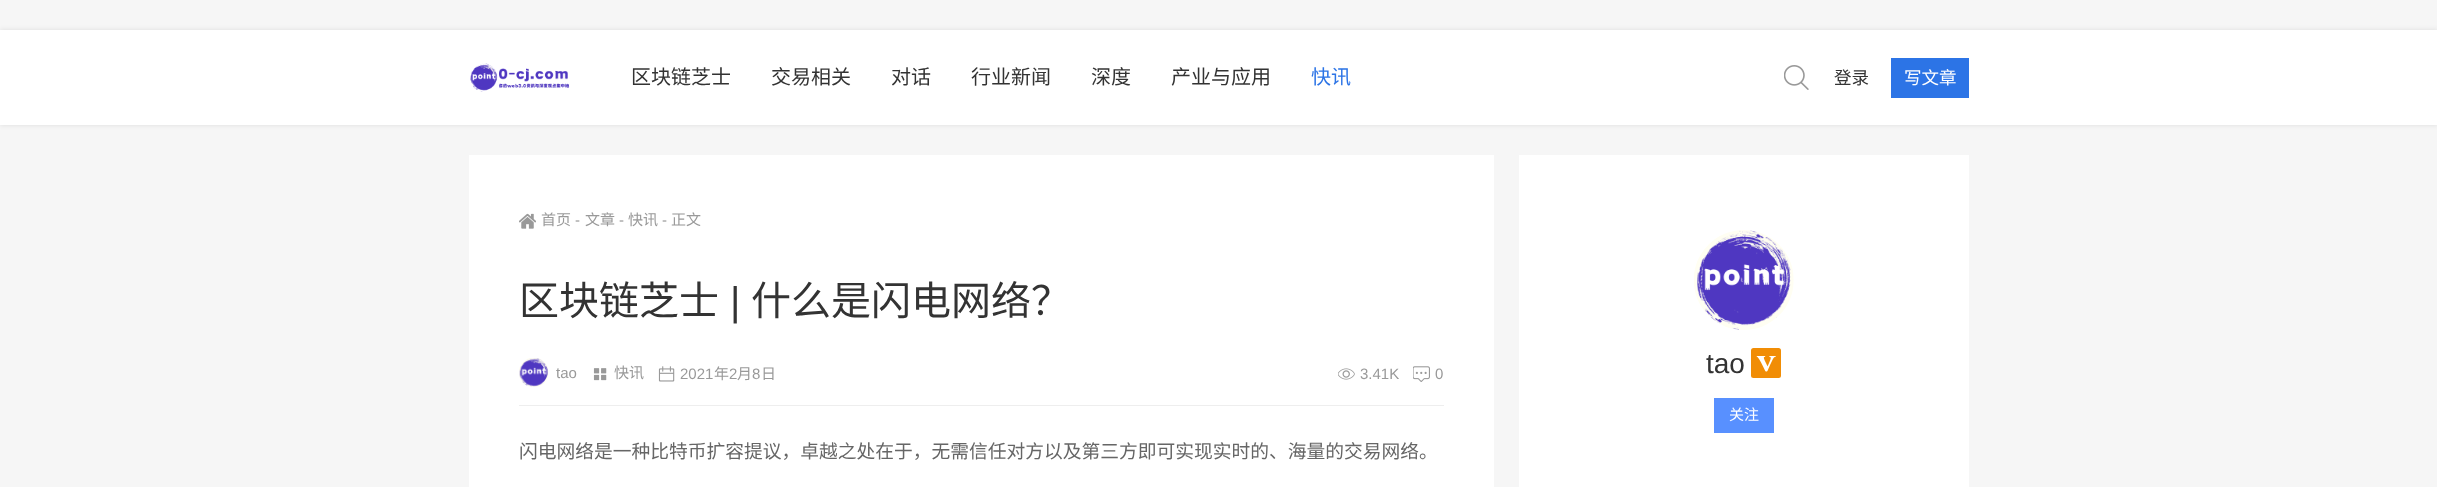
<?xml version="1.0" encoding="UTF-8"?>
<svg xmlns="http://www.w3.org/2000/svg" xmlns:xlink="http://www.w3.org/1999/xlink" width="2437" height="487">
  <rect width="100%" height="100%" fill="#f6f6f6" />
  <rect y="30" width="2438" height="95" fill="#000000" fill-opacity="0.1" filter="blur(2.5px)" />
  <rect y="30" width="2437" height="95" fill="#ffffff" />
  <image x="470" y="63" width="100" height="29" xlink:href="image1.png" />
  <image x="1784" y="65" width="25" height="25" xlink:href="image2.png" />
  <rect x="1891" y="58" width="78" height="40" fill="#2c74e6" />
  <rect x="469" y="155" width="1025" height="332" fill="#ffffff" />
  <image x="519" y="213" width="17" height="16" xlink:href="image3.png" />
  <rect x="519" y="405" width="925" height="1" fill="#eeeeee" />
  <image x="519" y="358" width="30" height="29" xlink:href="image4.png" />
  <image x="593" y="368" width="14" height="13" xlink:href="image5.png" />
  <image x="658" y="366" width="17" height="16" xlink:href="image6.png" />
  <image x="1338" y="368" width="17" height="12" xlink:href="image7.png" />
  <image x="1413" y="366" width="17" height="16" xlink:href="image8.png" />
  <rect x="1519" y="155" width="450" height="332" fill="#ffffff" />
  <image x="1694" y="230" width="100" height="100" xlink:href="image9.png" />
  <rect x="1751" y="348" width="30" height="30" rx="2.5" fill="#f18d05" />
  <image x="1756" y="356" width="20" height="16" xlink:href="image10.png" />
  <rect x="1714" y="398" width="60" height="35" fill="#5890ff" />
  <text x="631" y="84" style="font-family: Noto Sans CJK SC; font-size: 20px; fill: #333333">区块链芝士</text>
  <text x="771" y="84" style="font-family: Noto Sans CJK SC; font-size: 20px; fill: #333333">交易相关</text>
  <text x="891" y="84" style="font-family: Noto Sans CJK SC; font-size: 20px; fill: #333333">对话</text>
  <text x="971" y="84" style="font-family: Noto Sans CJK SC; font-size: 20px; fill: #333333">行业新闻</text>
  <text x="1091" y="84" style="font-family: Noto Sans CJK SC; font-size: 20px; fill: #333333">深度</text>
  <text x="1171" y="84" style="font-family: Noto Sans CJK SC; font-size: 20px; fill: #333333">产业与应用</text>
  <text x="1311" y="84" style="font-family: Noto Sans CJK SC; font-size: 20px; fill: #2c74e6">快讯</text>
  <text x="1834" y="84" style="font-family: Noto Sans CJK SC; font-size: 17.5px; fill: #333333">登录</text>
  <text x="1904" y="84" style="font-family: Noto Sans CJK SC; font-size: 17.5px; fill: #ffffff">写文章</text>
  <text x="541" y="225" style="font-family: Noto Sans CJK SC; font-size: 15px; fill: #999999">首页</text>
  <text x="575" y="225" style="font-family: Liberation Sans; font-size: 15px; fill: #999999">-</text>
  <text x="585" y="225" style="font-family: Noto Sans CJK SC; font-size: 15px; fill: #999999">文章</text>
  <text x="619" y="225" style="font-family: Liberation Sans; font-size: 15px; fill: #999999">-</text>
  <text x="628" y="225" style="font-family: Noto Sans CJK SC; font-size: 15px; fill: #999999">快讯</text>
  <text x="662" y="225" style="font-family: Liberation Sans; font-size: 15px; fill: #999999">-</text>
  <text x="671" y="225" style="font-family: Noto Sans CJK SC; font-size: 15px; fill: #999999">正文</text>
  <text x="519" y="315" style="font-family: Noto Sans CJK SC; font-size: 40px; fill: #333333">区块链芝士</text>
  <text x="730" y="315" style="font-family: Liberation Sans; font-size: 40px; fill: #333333">|</text>
  <text x="751" y="315" style="font-family: Noto Sans CJK SC; font-size: 40px; fill: #333333">什么是闪电网络？</text>
  <text x="556" y="378" style="font-family: Liberation Sans; font-size: 15px; fill: #999999">tao</text>
  <text x="614" y="378" style="font-family: Noto Sans CJK SC; font-size: 15px; fill: #999999">快讯</text>
  <text x="680" y="379" style="font-family: Liberation Sans; font-size: 15px; fill: #999999">2021</text>
  <text x="714" y="379" style="font-family: Noto Sans CJK SC; font-size: 15px; fill: #999999">年</text>
  <text x="729" y="379" style="font-family: Liberation Sans; font-size: 15px; fill: #999999">2</text>
  <text x="737" y="379" style="font-family: Noto Sans CJK SC; font-size: 15px; fill: #999999">月</text>
  <text x="752" y="379" style="font-family: Liberation Sans; font-size: 15px; fill: #999999">8</text>
  <text x="761" y="379" style="font-family: Noto Sans CJK SC; font-size: 15px; fill: #999999">日</text>
  <text x="1360" y="379" style="font-family: Liberation Sans; font-size: 15px; fill: #999999">3.41K</text>
  <text x="1435" y="379" style="font-family: Liberation Sans; font-size: 15px; fill: #999999">0</text>
  <text x="519" y="458" style="font-family: Noto Sans CJK SC; font-size: 18.75px; fill: #666666">闪电网络是一种比特币扩容提议，卓越之处在于，无需信任对方以及第三方即可实现实时的、海量的交易网络。</text>
  <text x="1706" y="373" style="font-family: Liberation Sans; font-size: 28px; fill: #333333">tao</text>
  <text x="1729" y="420" style="font-family: Noto Sans CJK SC; font-size: 15px; fill: #ffffff">关注</text>
</svg>
